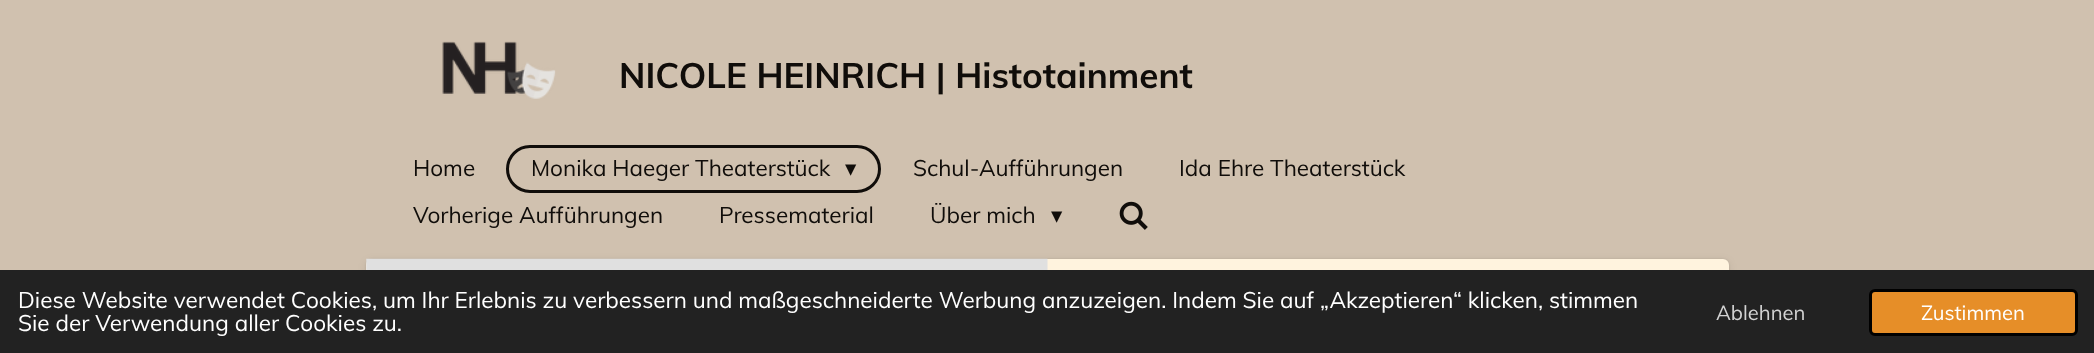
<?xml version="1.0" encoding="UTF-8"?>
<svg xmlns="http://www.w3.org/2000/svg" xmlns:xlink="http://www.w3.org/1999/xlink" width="2094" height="353">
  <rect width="100%" height="100%" fill="#d0c1af" />
  <image x="442" y="41" width="114" height="58" xlink:href="image1.png" />
  <rect x="507.5" y="146.5" width="372" height="45" rx="22.5" fill="none" stroke="#100d0a" stroke-width="3" />
  <image x="1119" y="201" width="29" height="29" xlink:href="image2.png" />
  <rect x="366" y="259" width="1363" height="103" rx="6" fill="#000000" fill-opacity="0.1" filter="blur(1px)" />
  <rect x="366" y="261" width="1363" height="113" rx="6" fill="#000000" fill-opacity="0.07" filter="blur(5px)" />
  <rect x="366" y="259" width="1363" height="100" rx="6" fill="#fff3de" />
  <image x="366" y="258" width="682" height="12" xlink:href="image3.png" />
  <rect y="270" width="2094" height="83" fill="#222222" />
  <rect x="1870.5" y="290.5" width="206" height="44" rx="4.5" fill="#e68e28" stroke="#000000" stroke-width="3" />
  <text x="619" y="88" style="font-family: Muli; font-size: 35px; font-weight: bold; fill: #100d0a">NICOLE HEINRICH | Histotainment</text>
  <text x="413" y="176" style="font-family: Muli; font-size: 22.5px; fill: #100d0a">Home</text>
  <text x="531" y="176" style="font-family: Muli; font-size: 22.5px; fill: #100d0a">Monika Haeger Theaterstück</text>
  <text x="845" y="176" style="font-family: DejaVu Sans; font-size: 22.5px; fill: #100d0a">▾</text>
  <text x="913" y="176" style="font-family: Muli; font-size: 22.5px; fill: #100d0a">Schul-Aufführungen</text>
  <text x="1179" y="176" style="font-family: Muli; font-size: 22.5px; fill: #100d0a">Ida Ehre Theaterstück</text>
  <text x="413" y="223" style="font-family: Muli; font-size: 22.5px; fill: #100d0a">Vorherige Aufführungen</text>
  <text x="719" y="223" style="font-family: Muli; font-size: 22.5px; fill: #100d0a">Pressematerial</text>
  <text x="930" y="223" style="font-family: Muli; font-size: 22.5px; fill: #100d0a">Über mich</text>
  <text x="1051" y="223" style="font-family: DejaVu Sans; font-size: 22.5px; fill: #100d0a">▾</text>
  <text x="18" y="308" style="font-family: Muli; font-size: 22.5px; fill: #ffffff">Diese Website verwendet Cookies, um Ihr Erlebnis zu verbessern und maßgeschneiderte Werbung anzuzeigen. Indem Sie auf „Akzeptieren“ klicken, stimmen</text>
  <text x="18" y="331" style="font-family: Muli; font-size: 22.5px; fill: #ffffff">Sie der Verwendung aller Cookies zu.</text>
  <text x="1716" y="320" style="font-family: Muli; font-size: 20.25px; fill: #d3d3d3">Ablehnen</text>
  <text x="1921" y="320" style="font-family: Muli; font-size: 20.25px; fill: #ffffff">Zustimmen</text>
</svg>
